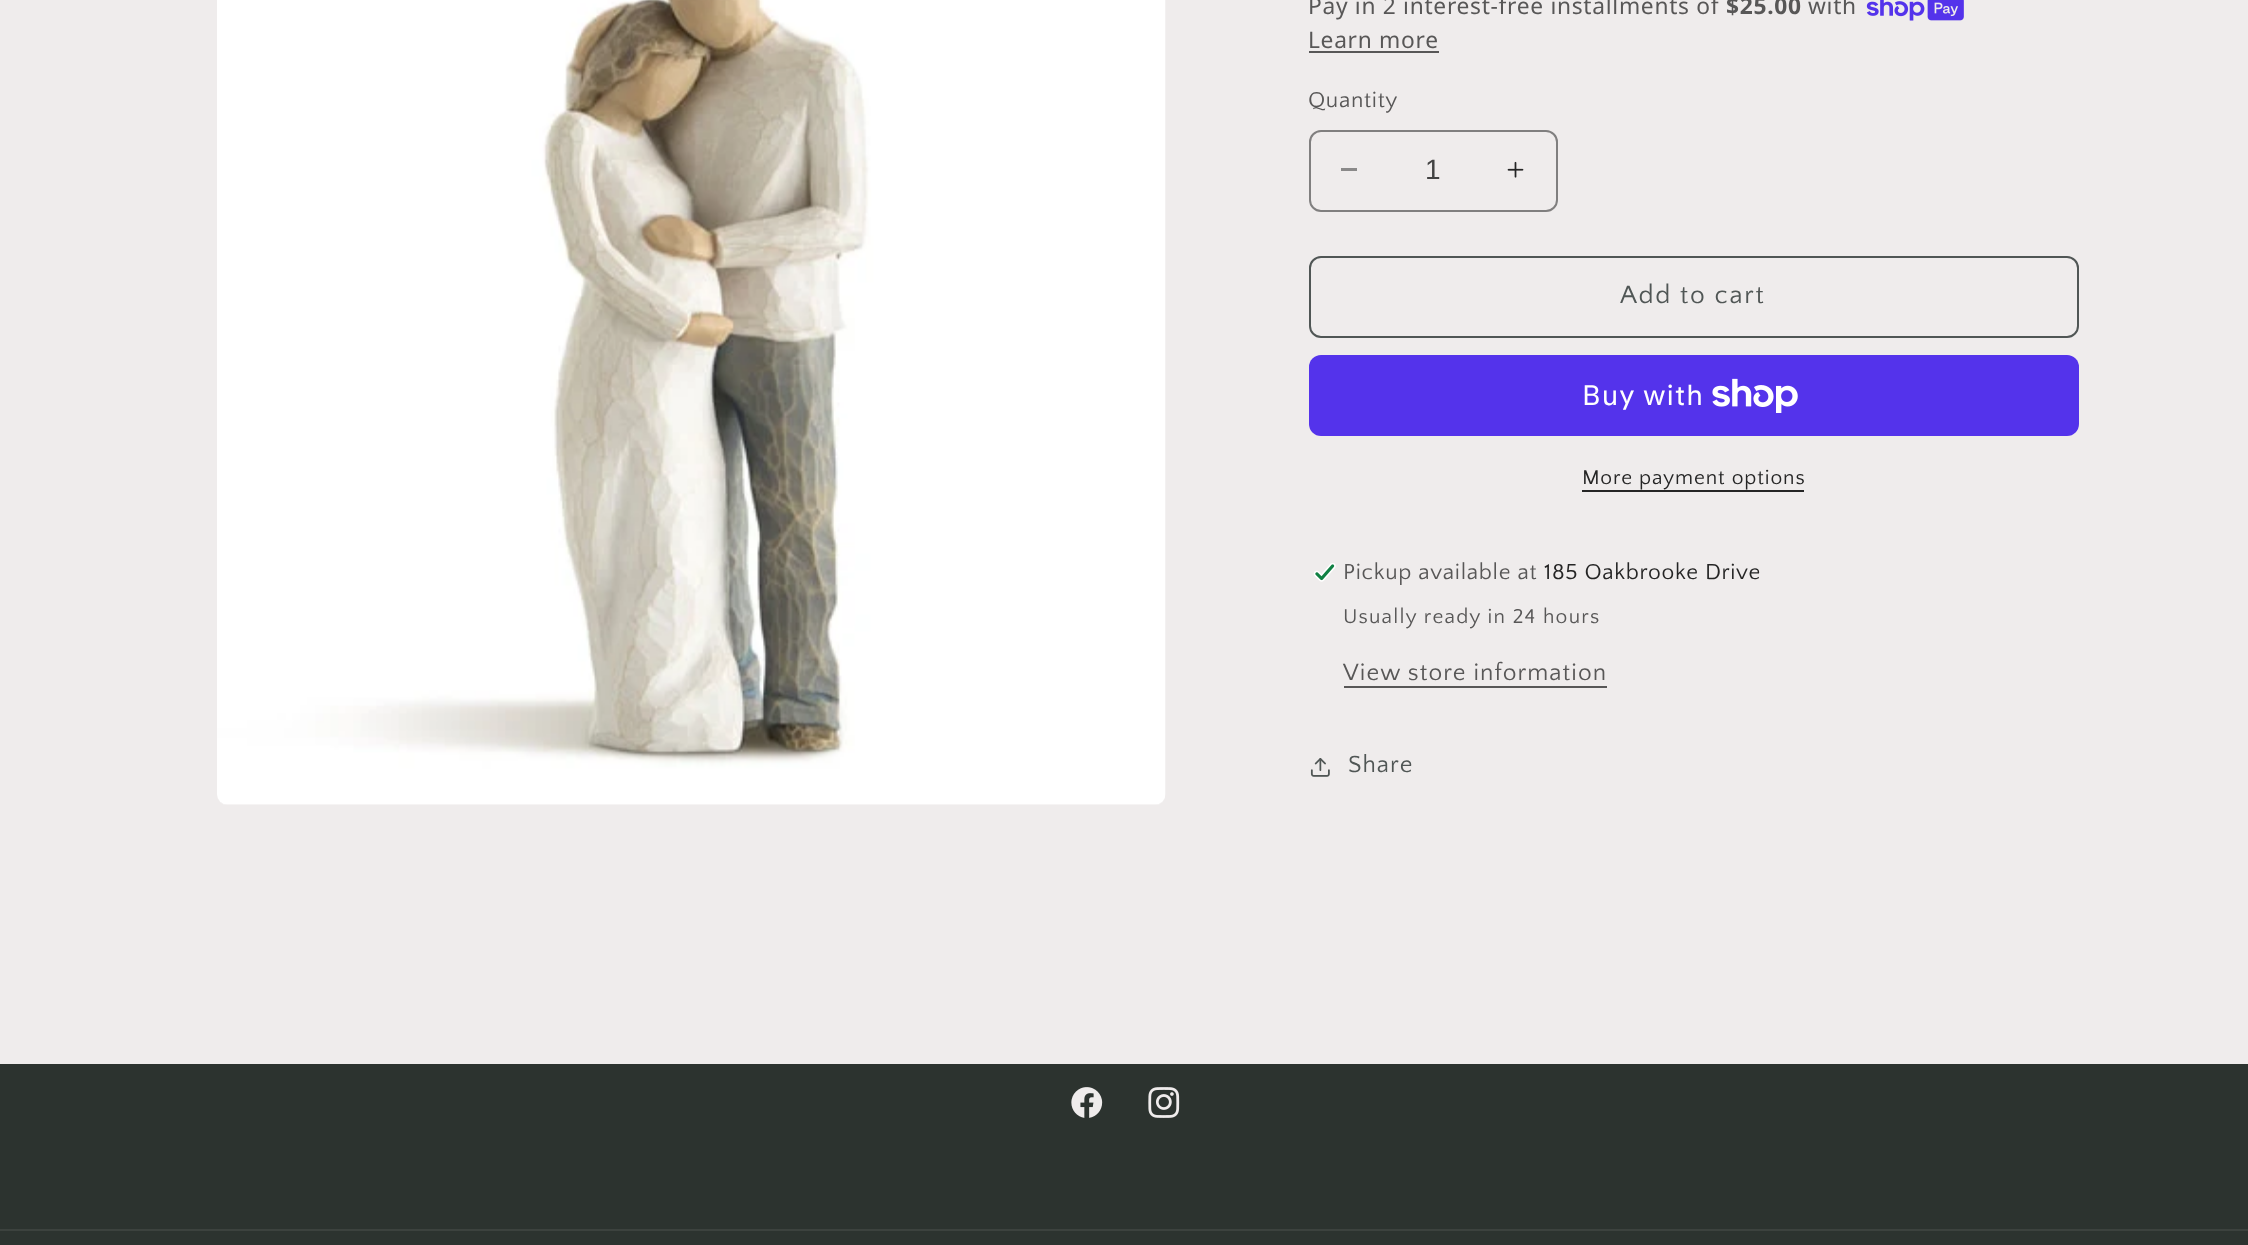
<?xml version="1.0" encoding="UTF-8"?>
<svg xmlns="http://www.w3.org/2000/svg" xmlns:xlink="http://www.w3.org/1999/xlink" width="2248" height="1245">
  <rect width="100%" height="100%" fill="#efecec" />
  <image x="217" y="0" width="949" height="805" xlink:href="image1.png" />
  <image x="1866" y="0" width="98" height="21" xlink:href="image2.png" />
  <rect x="1309" y="51" width="130" height="2" fill="#585757" />
  <rect x="1341" y="168" width="16" height="3" fill="#8a8989" />
  <image x="1507" y="161" width="17" height="17" xlink:href="image3.png" />
  <rect x="1310" y="131" width="247" height="80" rx="11" fill="none" stroke="#807f7f" stroke-width="2" />
  <rect x="1310" y="257" width="768" height="80" rx="11" fill="none" stroke="#505655" stroke-width="2" />
  <rect x="1309" y="355" width="770" height="81" rx="12" fill="#5433eb" />
  <image x="1712" y="378" width="86" height="35" xlink:href="image4.png" />
  <rect x="1582" y="490" width="222" height="2" fill="#252525" />
  <image x="1313" y="563" width="23" height="19" xlink:href="image5.png" />
  <rect x="1344" y="686" width="263" height="2" fill="#585757" />
  <image x="1310" y="758" width="20" height="19" xlink:href="image6.png" />
  <rect y="1064" width="2248" height="181" fill="#2c332f" />
  <image x="1071" y="1087" width="32" height="31" xlink:href="image7.png" />
  <image x="1148" y="1087" width="32" height="31" xlink:href="image8.png" />
  <rect y="1229" width="2248" height="2" fill="#3c423e" />
  <text x="1308" y="14" style="font-family: Noto Sans; font-size: 22.75px; letter-spacing: 0.7px; fill: #585757">Pay in 2 interest-free installments of</text>
  <text x="1726" y="14" style="font-family: Noto Sans; font-size: 22.75px; font-weight: bold; letter-spacing: 0.7px; fill: #585757">$25.00</text>
  <text x="1808" y="14" style="font-family: Noto Sans; font-size: 22.75px; letter-spacing: 0.7px; fill: #585757">with</text>
  <text x="1308" y="48" style="font-family: Noto Sans; font-size: 22.75px; letter-spacing: 0.7px; fill: #585757">Learn more</text>
  <text x="1308" y="107" style="font-family: Quattrocento Sans; font-size: 22.75px; letter-spacing: 0.7px; fill: #585757">Quantity</text>
  <text x="1425" y="179" style="font-family: Liberation Sans; font-size: 28px; fill: #434343">1</text>
  <text x="1620" y="303" style="font-family: Quattrocento Sans; font-size: 26.25px; letter-spacing: 1.75px; fill: #505655">Add to cart</text>
  <text x="1582" y="405" style="font-family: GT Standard; font-size: 28px; letter-spacing: 1.05px; fill: #ffffff">Buy with</text>
  <text x="1582" y="484" style="font-family: Quattrocento Sans; font-size: 21px; letter-spacing: 0.9px; fill: #252525">More payment options</text>
  <text x="1343" y="579" style="font-family: Quattrocento Sans; font-size: 22.75px; letter-spacing: 0.7px; fill: #585757">Pickup available at</text>
  <text x="1544" y="579" style="font-family: Quattrocento Sans; font-size: 22.75px; letter-spacing: 0.7px; fill: #252525">185 Oakbrooke Drive</text>
  <text x="1343" y="623" style="font-family: Quattrocento Sans; font-size: 21px; letter-spacing: 1.25px; fill: #585757">Usually ready in 24 hours</text>
  <text x="1343" y="680" style="font-family: Quattrocento Sans; font-size: 24.5px; letter-spacing: 1.05px; fill: #585757">View store information</text>
  <text x="1348" y="772" style="font-family: Quattrocento Sans; font-size: 24.5px; letter-spacing: 1.05px; fill: #505655">Share</text>
</svg>
